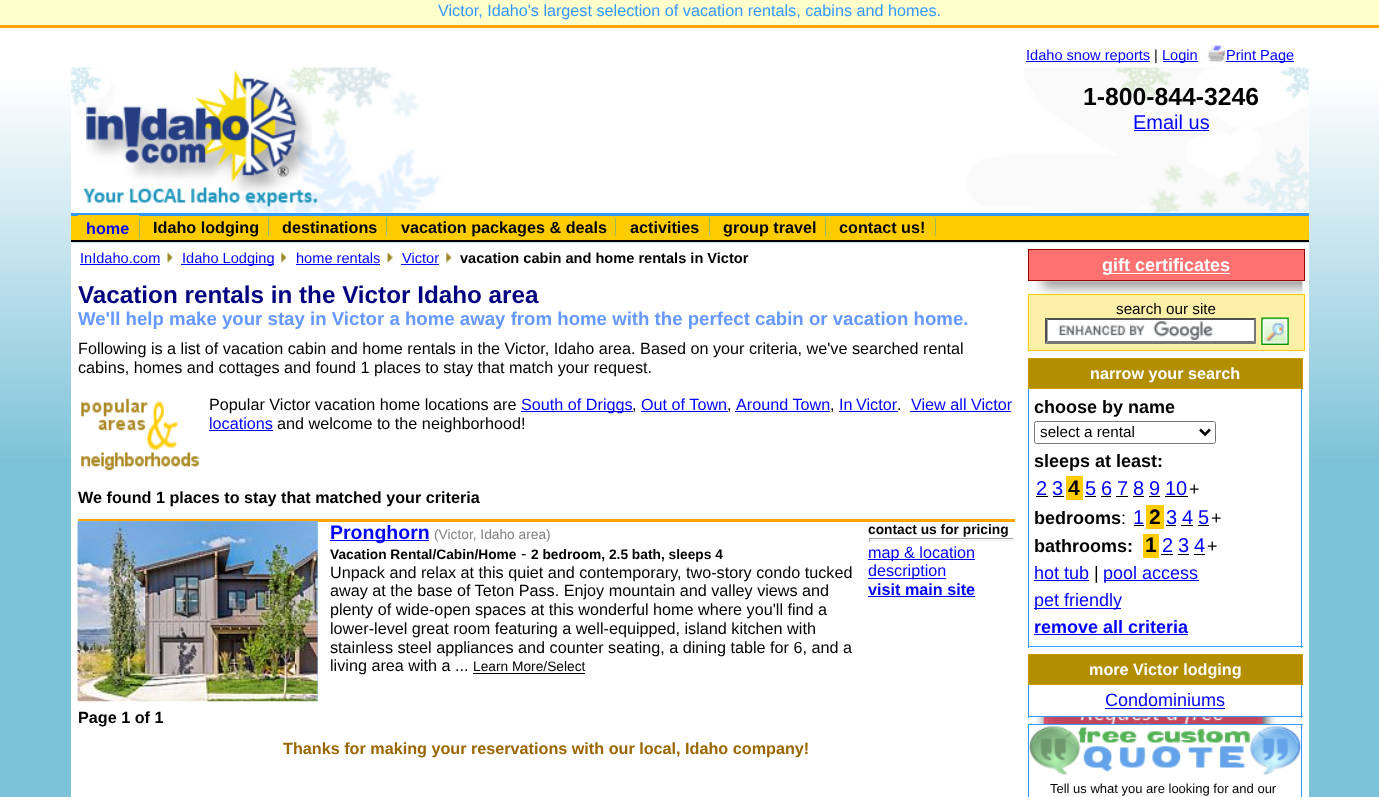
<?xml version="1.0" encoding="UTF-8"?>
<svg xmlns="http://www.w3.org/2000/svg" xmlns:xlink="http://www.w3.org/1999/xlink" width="1379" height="797">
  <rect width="100%" height="100%" fill="#7bc2d8" />
  <image x="0" y="28" width="1379" height="430" xlink:href="image1.png" />
  <rect width="1379" height="25" fill="#ffffcc" />
  <rect y="25" width="1379" height="3" fill="#ffa500" />
  <rect x="1026" y="61" width="124" height="1" fill="#0000ff" />
  <rect x="1163" y="61" width="35" height="1" fill="#0000ff" />
  <image x="1207" y="45" width="19" height="17" xlink:href="image2.png" />
  <rect x="1226" y="61" width="68" height="1" fill="#0000ff" />
  <rect x="71" y="86" width="1238" height="127" fill="#ffffff" />
  <image x="71" y="67" width="1238" height="146" xlink:href="image3.png" />
  <image x="86" y="70" width="226" height="122" xlink:href="image4.png" />
  <rect x="1134" y="130" width="75" height="1" fill="#0000ff" />
  <rect x="71" y="216" width="1238" height="24" fill="#ffcc00" />
  <rect x="71" y="213" width="1238" height="3" fill="#3399ff" />
  <rect x="71" y="240" width="1238" height="2" fill="#000000" />
  <rect x="139" y="219" width="1" height="19" fill="#9bbb59" />
  <rect x="78" y="215" width="61" height="1" fill="#ffcc00" />
  <rect x="268" y="218" width="1" height="18" fill="#9bbb59" />
  <rect x="386" y="218" width="1" height="18" fill="#9bbb59" />
  <rect x="615" y="218" width="1" height="18" fill="#9bbb59" />
  <rect x="709" y="218" width="1" height="18" fill="#9bbb59" />
  <rect x="825" y="218" width="1" height="18" fill="#9bbb59" />
  <rect x="935" y="218" width="1" height="18" fill="#9bbb59" />
  <rect x="71" y="243" width="1238" height="554" fill="#ffffff" />
  <rect x="80" y="264" width="80" height="1" fill="#0000ff" />
  <image x="167" y="252" width="6" height="11" xlink:href="image5.png" />
  <rect x="181" y="264" width="93" height="1" fill="#0000ff" />
  <image x="281" y="252" width="6" height="11" xlink:href="image6.png" />
  <rect x="296" y="264" width="84" height="1" fill="#0000ff" />
  <image x="387" y="252" width="6" height="11" xlink:href="image7.png" />
  <rect x="401" y="264" width="38" height="1" fill="#0000ff" />
  <image x="446" y="252" width="6" height="11" xlink:href="image6.png" />
  <image x="81" y="398" width="118" height="73" xlink:href="image8.png" />
  <rect x="521" y="411" width="112" height="1" fill="#0000ff" />
  <rect x="641" y="411" width="87" height="1" fill="#0000ff" />
  <rect x="735" y="411" width="95" height="1" fill="#0000ff" />
  <rect x="839" y="411" width="59" height="1" fill="#0000ff" />
  <rect x="910" y="411" width="101" height="1" fill="#0000ff" />
  <rect x="209" y="430" width="64" height="1" fill="#0000ff" />
  <rect x="78" y="519" width="937" height="3" fill="#ffa500" />
  <rect x="78" y="521" width="240" height="180" fill="#99ccff" />
  <image x="77" y="521" width="241" height="181" xlink:href="image9.png" />
  <rect x="330" y="540" width="99" height="1" fill="#0000ff" />
  <rect x="473" y="673" width="112" height="1" fill="#000000" />
  <rect x="869" y="538" width="145" height="1" fill="#9f9f9f" />
  <rect x="1013" y="538" width="1" height="4" fill="#eeeeee" />
  <rect x="869" y="540" width="145" height="1" fill="#eeeeee" />
  <rect x="869" y="538" width="1" height="4" fill="#9f9f9f" />
  <rect x="868" y="559" width="107" height="1" fill="#0000ff" />
  <rect x="868" y="578" width="78" height="1" fill="#0000ff" />
  <rect x="868" y="596" width="107" height="1" fill="#0000ff" />
  <rect x="1028.5" y="249.5" width="276" height="31" fill="#ff7171" stroke="#970000" />
  <rect x="1103" y="273" width="127" height="1" fill="#ffffff" />
  <image x="1034" y="281" width="269" height="13" xlink:href="image10.png" />
  <rect x="1028.5" y="294.5" width="276" height="56" fill="#fcefa7" stroke="#ffcc00" />
  <rect x="1045" y="318" width="211" height="26" fill="#ffffff" />
  <image x="1058" y="321" width="155" height="19" xlink:href="image11.png" />
  <path d="M 1045 318 h 211 l -2 2 h -206 z" fill="#4f4f4f" />
  <path d="M 1256 317.5 v 26.5 l -2 -3 v -21 z" fill="#767676" />
  <path d="M 1256 344 h -211 l 3 -3 h 206 z" fill="#767676" />
  <path d="M 1045 344 v -26.5 l 2.5 2.5 v 21 z" fill="#4f4f4f" />
  <image x="1261" y="317" width="28" height="28" xlink:href="image12.png" />
  <rect x="1028.5" y="358.5" width="274" height="30" fill="#b38f00" stroke="#cc9900" />
  <rect x="1301" y="389" width="1" height="259" fill="#3399ff" />
  <rect x="1028" y="646" width="275" height="1" fill="#3399ff" />
  <rect x="1028" y="389" width="1" height="259" fill="#3399ff" />
  <rect x="1034.5" y="421.5" width="181" height="22" rx="2" fill="none" stroke="#767676" />
  <path d="M 1200 429.5 l 5 5 l 5 -5" fill="none" stroke="#000000" stroke-width="2.5" />
  <rect x="1036" y="496" width="12" height="1" fill="#000000" />
  <rect x="1053" y="496" width="11" height="1" fill="#000000" />
  <rect x="1066" y="476" width="17" height="24" fill="#ffcc00" />
  <rect x="1085" y="496" width="11" height="1" fill="#000000" />
  <rect x="1101" y="496" width="10" height="1" fill="#000000" />
  <rect x="1116" y="496" width="12" height="1" fill="#000000" />
  <rect x="1133" y="496" width="11" height="1" fill="#000000" />
  <rect x="1149" y="496" width="11" height="1" fill="#000000" />
  <rect x="1165" y="496" width="23" height="1" fill="#000000" />
  <rect x="1134" y="525" width="10" height="1" fill="#000000" />
  <rect x="1146" y="505" width="18" height="24" fill="#ffcc00" />
  <rect x="1166" y="525" width="10" height="1" fill="#000000" />
  <rect x="1181" y="525" width="12" height="1" fill="#000000" />
  <rect x="1198" y="525" width="11" height="1" fill="#000000" />
  <rect x="1143" y="534" width="16" height="24" fill="#ffcc00" />
  <rect x="1161" y="554" width="12" height="1" fill="#000000" />
  <rect x="1178" y="554" width="11" height="1" fill="#000000" />
  <rect x="1194" y="554" width="11" height="1" fill="#000000" />
  <rect x="1034" y="580" width="55" height="1" fill="#0000ff" />
  <rect x="1104" y="580" width="95" height="1" fill="#0000ff" />
  <rect x="1034" y="608" width="87" height="1" fill="#0000ff" />
  <rect x="1034" y="634" width="154" height="1" fill="#0000ff" />
  <rect x="1028.5" y="654.5" width="274" height="30" fill="#b38f00" stroke="#cc9900" />
  <rect x="1301" y="685" width="1" height="33" fill="#3399ff" />
  <rect x="1028" y="716" width="275" height="1" fill="#3399ff" />
  <rect x="1028" y="685" width="1" height="33" fill="#3399ff" />
  <rect x="1105" y="708" width="120" height="1" fill="#0000ff" />
  <image x="1035" y="717" width="241" height="7" xlink:href="image13.png" />
  <rect x="1028" y="724" width="275" height="1" fill="#3399ff" />
  <rect x="1028" y="724" width="1" height="51" fill="#3399ff" />
  <rect x="1301" y="724" width="1" height="51" fill="#3399ff" />
  <image x="1028" y="726" width="273" height="49" xlink:href="image14.png" />
  <rect x="1301" y="775" width="1" height="22" fill="#3399ff" />
  <rect x="1028" y="775" width="1" height="22" fill="#3399ff" />
  <text x="438" y="16" style="font-family: Liberation Sans; font-size: 16.2px; fill: #3399ff">Victor, Idaho's largest selection of vacation rentals, cabins and homes.</text>
  <text x="1026" y="60" style="font-family: Liberation Sans; font-size: 14.6px; fill: #0000ff">Idaho snow reports</text>
  <text x="1154" y="60" style="font-family: Liberation Sans; font-size: 14.6px; fill: #000000">|</text>
  <text x="1162" y="60" style="font-family: Liberation Sans; font-size: 14.6px; fill: #0000ff">Login</text>
  <text x="1226" y="60" style="font-family: Liberation Sans; font-size: 14.6px; fill: #0000ff">Print Page</text>
  <text x="1083" y="105" style="font-family: Liberation Sans; font-size: 24.75px; font-weight: bold; fill: #000000">1-800-844-3246</text>
  <text x="1133" y="129" style="font-family: Liberation Sans; font-size: 20px; fill: #0000ff">Email us</text>
  <text x="86" y="234" style="font-family: Liberation Sans; font-size: 16.2px; font-weight: bold; fill: #0000ff">home</text>
  <text x="153" y="233" style="font-family: Liberation Sans; font-size: 16.2px; font-weight: bold; fill: #000000">Idaho lodging</text>
  <text x="282" y="233" style="font-family: Liberation Sans; font-size: 16.2px; font-weight: bold; fill: #000000">destinations</text>
  <text x="401" y="233" style="font-family: Liberation Sans; font-size: 16.2px; font-weight: bold; fill: #000000">vacation packages &amp; deals</text>
  <text x="630" y="233" style="font-family: Liberation Sans; font-size: 16.2px; font-weight: bold; fill: #000000">activities</text>
  <text x="723" y="233" style="font-family: Liberation Sans; font-size: 16.2px; font-weight: bold; fill: #000000">group travel</text>
  <text x="839" y="233" style="font-family: Liberation Sans; font-size: 16.2px; font-weight: bold; fill: #000000">contact us!</text>
  <text x="80" y="263" style="font-family: Liberation Sans; font-size: 14.6px; fill: #0000ff">InIdaho.com</text>
  <text x="182" y="263" style="font-family: Liberation Sans; font-size: 14.6px; fill: #0000ff">Idaho Lodging</text>
  <text x="296" y="263" style="font-family: Liberation Sans; font-size: 14.6px; fill: #0000ff">home rentals</text>
  <text x="402" y="263" style="font-family: Liberation Sans; font-size: 14.6px; fill: #0000ff">Victor</text>
  <text x="460" y="263" style="font-family: Liberation Sans; font-size: 14.6px; font-weight: bold; fill: #000000">vacation cabin and home rentals in Victor</text>
  <text x="78" y="303" style="font-family: Liberation Sans; font-size: 24.25px; font-weight: bold; fill: #000080">Vacation rentals in the Victor Idaho area</text>
  <text x="78" y="325" style="font-family: Liberation Sans; font-size: 18.65px; font-weight: bold; fill: #6699ff">We'll help make your stay in Victor a home away from home with the perfect cabin or vacation home.</text>
  <text x="78" y="354" style="font-family: Liberation Sans; font-size: 16.2px; fill: #000000">Following is a list of vacation cabin and home rentals in the Victor, Idaho area. Based on your criteria, we've searched rental</text>
  <text x="78" y="373" style="font-family: Liberation Sans; font-size: 16.2px; fill: #000000">cabins, homes and cottages and found 1 places to stay that match your request.</text>
  <text x="209" y="410" style="font-family: Liberation Sans; font-size: 16.2px; fill: #000000">Popular Victor vacation home locations are</text>
  <text x="521" y="410" style="font-family: Liberation Sans; font-size: 16.2px; fill: #0000ff">South of Driggs</text>
  <text x="632" y="410" style="font-family: Liberation Sans; font-size: 16.2px; fill: #000000">,</text>
  <text x="641" y="410" style="font-family: Liberation Sans; font-size: 16.2px; fill: #0000ff">Out of Town</text>
  <text x="727" y="410" style="font-family: Liberation Sans; font-size: 16.2px; fill: #000000">,</text>
  <text x="736" y="410" style="font-family: Liberation Sans; font-size: 16.2px; fill: #0000ff">Around Town</text>
  <text x="830" y="410" style="font-family: Liberation Sans; font-size: 16.2px; fill: #000000">,</text>
  <text x="839" y="410" word-spacing="-1" style="font-family: Liberation Sans; font-size: 16.2px; fill: #0000ff">In Victor</text>
  <text x="897" y="410" style="font-family: Liberation Sans; font-size: 16.2px; fill: #000000">.</text>
  <text x="911" y="410" style="font-family: Liberation Sans; font-size: 16.2px; fill: #0000ff">View all Victor</text>
  <text x="209" y="429" style="font-family: Liberation Sans; font-size: 16.2px; fill: #0000ff">locations</text>
  <text x="277" y="429" style="font-family: Liberation Sans; font-size: 16.2px; fill: #000000">and welcome to the neighborhood!</text>
  <text x="78" y="503" style="font-family: Liberation Sans; font-size: 16.2px; font-weight: bold; fill: #000000">We found 1 places to stay that matched your criteria</text>
  <text x="330" y="539" style="font-family: Liberation Sans; font-size: 19.5px; font-weight: bold; fill: #0000ff">Pronghorn</text>
  <text x="434" y="539" style="font-family: Liberation Sans; font-size: 13.75px; fill: #808080">(Victor, Idaho area)</text>
  <text x="330" y="559" style="font-family: Liberation Sans; font-size: 13.75px; font-weight: bold; fill: #000000">Vacation Rental/Cabin/Home</text>
  <text x="521" y="559" style="font-family: Liberation Sans; font-size: 16.2px; fill: #000000">-</text>
  <text x="531" y="559" style="font-family: Liberation Sans; font-size: 13.75px; font-weight: bold; fill: #000000">2 bedroom, 2.5 bath, sleeps 4</text>
  <text x="330" y="578" style="font-family: Liberation Sans; font-size: 16.2px; fill: #000000">Unpack and relax at this quiet and contemporary, two-story condo tucked</text>
  <text x="330" y="596" style="font-family: Liberation Sans; font-size: 16.2px; fill: #000000">away at the base of Teton Pass. Enjoy mountain and valley views and</text>
  <text x="330" y="615" style="font-family: Liberation Sans; font-size: 16.2px; fill: #000000">plenty of wide-open spaces at this wonderful home where you'll find a</text>
  <text x="330" y="634" style="font-family: Liberation Sans; font-size: 16.2px; fill: #000000">lower-level great room featuring a well-equipped, island kitchen with</text>
  <text x="330" y="653" style="font-family: Liberation Sans; font-size: 16.2px; fill: #000000">stainless steel appliances and counter seating, a dining table for 6, and a</text>
  <text x="330" y="671" style="font-family: Liberation Sans; font-size: 16.2px; fill: #000000">living area with a ...</text>
  <text x="473" y="671" style="font-family: Liberation Sans; font-size: 13.75px; fill: #000000">Learn More/Select</text>
  <text x="868" y="534" style="font-family: Liberation Sans; font-size: 13.75px; font-weight: bold; fill: #000000">contact us for pricing</text>
  <text x="868" y="558" style="font-family: Liberation Sans; font-size: 16.2px; fill: #0000ff">map &amp; location</text>
  <text x="868" y="576" style="font-family: Liberation Sans; font-size: 16.2px; fill: #0000ff">description</text>
  <text x="868" y="595" style="font-family: Liberation Sans; font-size: 16.2px; font-weight: bold; fill: #0000ff">visit main site</text>
  <text x="78" y="723" style="font-family: Liberation Sans; font-size: 16.2px; font-weight: bold; fill: #000000">Page 1 of 1</text>
  <text x="283" y="754" style="font-family: Liberation Sans; font-size: 16.2px; font-weight: bold; fill: #996600">Thanks for making your reservations with our local, Idaho company!</text>
  <text x="1102" y="271" style="font-family: Liberation Sans; font-size: 18px; font-weight: bold; fill: #ffffff">gift certificates</text>
  <text x="1116" y="314" style="font-family: Liberation Sans; font-size: 15.25px; fill: #000000">search our site</text>
  <text x="1090" y="379" style="font-family: Liberation Sans; font-size: 16.2px; font-weight: bold; fill: #ffffff">narrow your search</text>
  <text x="1034" y="413" style="font-family: Liberation Sans; font-size: 18px; font-weight: bold; fill: #000000">choose by name</text>
  <text x="1040" y="437" style="font-family: Liberation Sans; font-size: 15.25px; fill: #000000">select a rental</text>
  <text x="1034" y="467" style="font-family: Liberation Sans; font-size: 18px; font-weight: bold; fill: #000000">sleeps at least:</text>
  <text x="1036" y="495" style="font-family: Liberation Sans; font-size: 20px; fill: #0000ff">2</text>
  <text x="1052" y="495" style="font-family: Liberation Sans; font-size: 20px; fill: #0000ff">3</text>
  <text x="1068" y="495" style="font-family: Liberation Sans; font-size: 21px; font-weight: bold; fill: #000000">4</text>
  <text x="1085" y="495" style="font-family: Liberation Sans; font-size: 20px; fill: #0000ff">5</text>
  <text x="1101" y="495" style="font-family: Liberation Sans; font-size: 20px; fill: #0000ff">6</text>
  <text x="1117" y="495" style="font-family: Liberation Sans; font-size: 20px; fill: #0000ff">7</text>
  <text x="1133" y="495" style="font-family: Liberation Sans; font-size: 20px; fill: #0000ff">8</text>
  <text x="1149" y="495" style="font-family: Liberation Sans; font-size: 20px; fill: #0000ff">9</text>
  <text x="1165" y="495" style="font-family: Liberation Sans; font-size: 20px; fill: #0000ff">10</text>
  <text x="1189" y="495" style="font-family: Liberation Sans; font-size: 18px; fill: #000000">+</text>
  <text x="1034" y="524" style="font-family: Liberation Sans; font-size: 18px; font-weight: bold; fill: #000000">bedrooms</text>
  <text x="1121" y="524" style="font-family: Liberation Sans; font-size: 18px; fill: #000000">:</text>
  <text x="1133" y="524" style="font-family: Liberation Sans; font-size: 20px; fill: #0000ff">1</text>
  <text x="1149" y="524" style="font-family: Liberation Sans; font-size: 21px; font-weight: bold; fill: #000000">2</text>
  <text x="1166" y="524" style="font-family: Liberation Sans; font-size: 20px; fill: #0000ff">3</text>
  <text x="1182" y="524" style="font-family: Liberation Sans; font-size: 20px; fill: #0000ff">4</text>
  <text x="1198" y="524" style="font-family: Liberation Sans; font-size: 20px; fill: #0000ff">5</text>
  <text x="1211" y="524" style="font-family: Liberation Sans; font-size: 18px; fill: #000000">+</text>
  <text x="1034" y="552" style="font-family: Liberation Sans; font-size: 18px; font-weight: bold; fill: #000000">bathrooms:</text>
  <text x="1145" y="552" style="font-family: Liberation Sans; font-size: 21px; font-weight: bold; fill: #000000">1</text>
  <text x="1162" y="552" style="font-family: Liberation Sans; font-size: 20px; fill: #0000ff">2</text>
  <text x="1178" y="552" style="font-family: Liberation Sans; font-size: 20px; fill: #0000ff">3</text>
  <text x="1194" y="552" style="font-family: Liberation Sans; font-size: 20px; fill: #0000ff">4</text>
  <text x="1207" y="552" style="font-family: Liberation Sans; font-size: 18px; fill: #000000">+</text>
  <text x="1034" y="579" style="font-family: Liberation Sans; font-size: 18px; fill: #0000ff">hot tub</text>
  <text x="1094" y="579" style="font-family: Liberation Sans; font-size: 18px; fill: #000000">|</text>
  <text x="1103" y="579" style="font-family: Liberation Sans; font-size: 18px; fill: #0000ff">pool access</text>
  <text x="1034" y="606" style="font-family: Liberation Sans; font-size: 18px; fill: #0000ff">pet friendly</text>
  <text x="1034" y="633" style="font-family: Liberation Sans; font-size: 18px; font-weight: bold; fill: #0000ff">remove all criteria</text>
  <text x="1089" y="675" style="font-family: Liberation Sans; font-size: 16.2px; font-weight: bold; fill: #ffffff">more Victor lodging</text>
  <text x="1105" y="706" style="font-family: Liberation Sans; font-size: 18px; fill: #0000ff">Condominiums</text>
  <text x="1050" y="793" style="font-family: Liberation Sans; font-size: 13px; fill: #000000">Tell us what you are looking for and our</text>
</svg>
